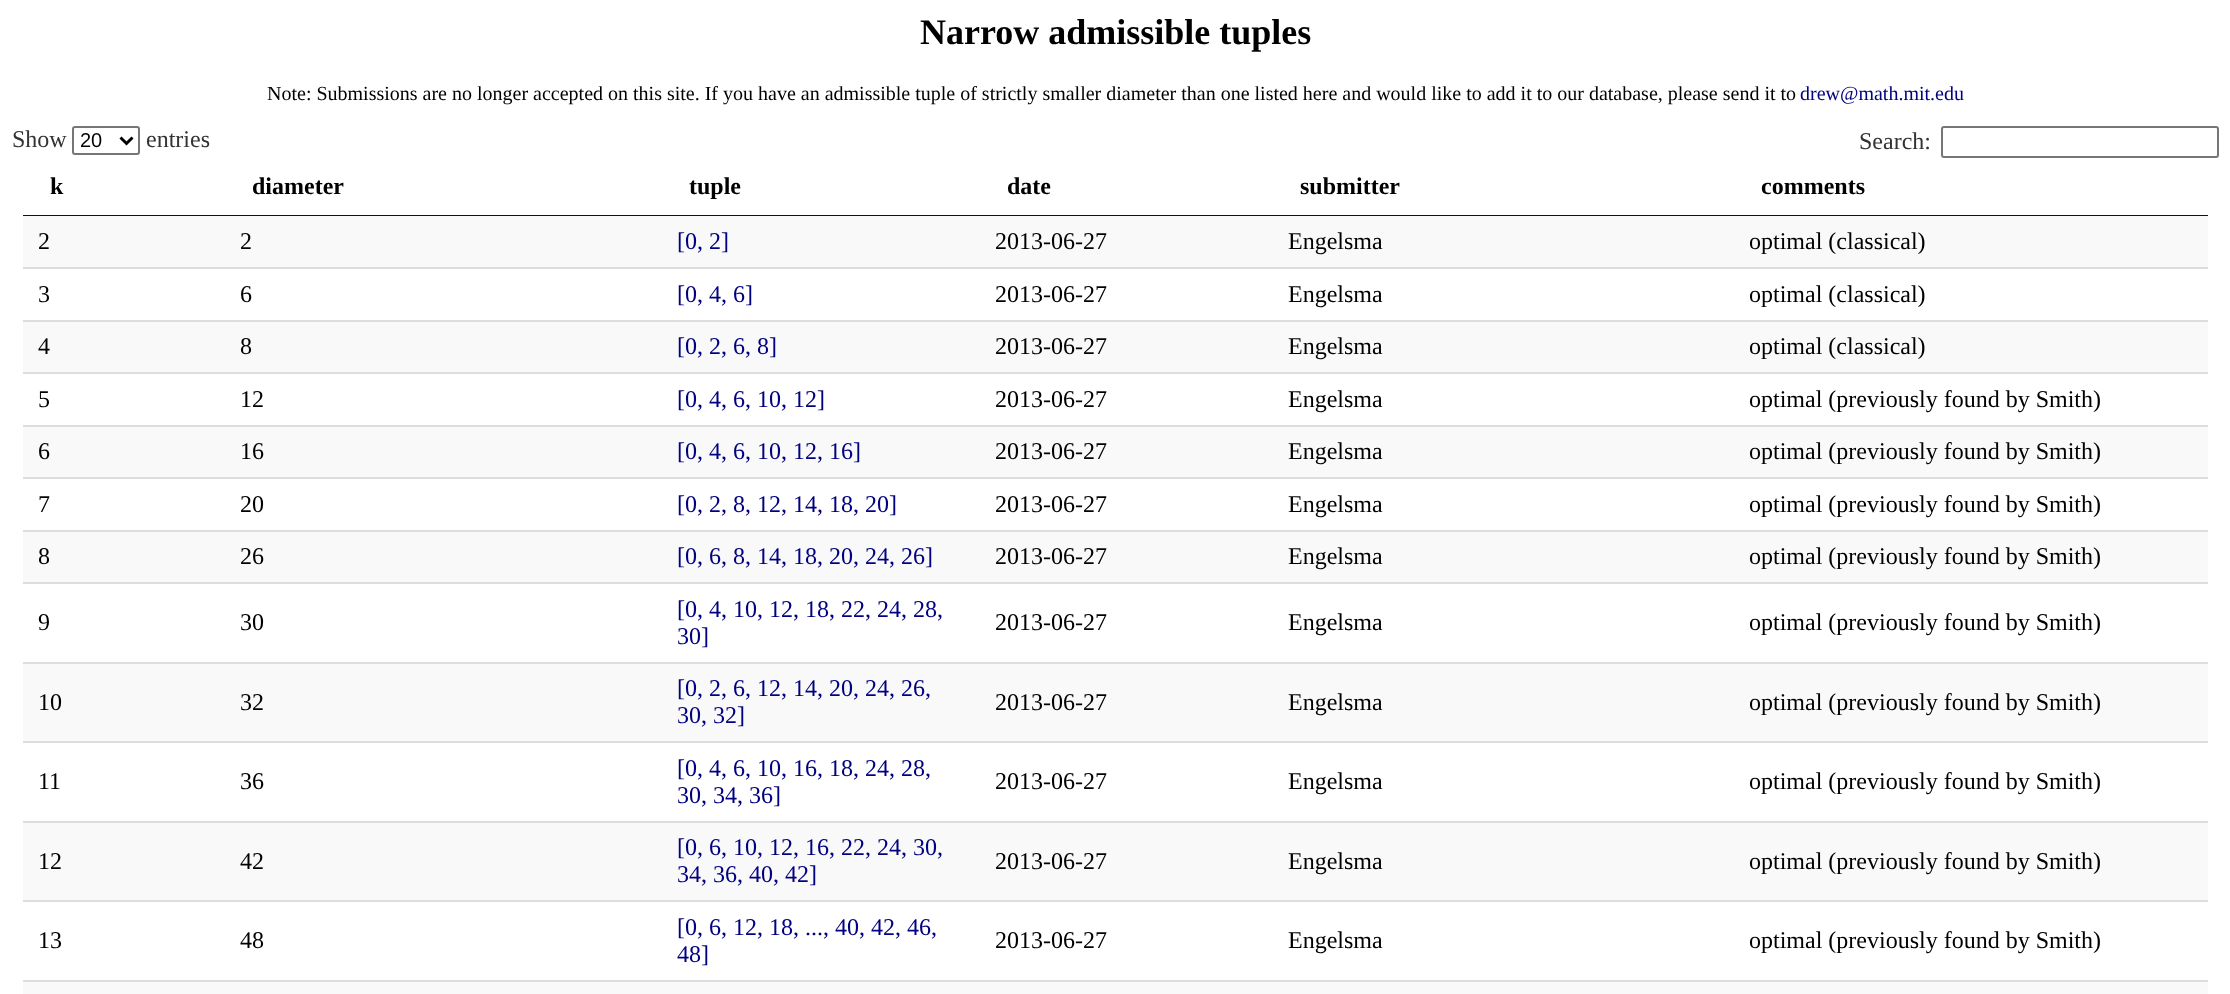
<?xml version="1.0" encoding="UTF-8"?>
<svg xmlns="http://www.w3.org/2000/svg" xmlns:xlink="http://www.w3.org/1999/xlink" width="2230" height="994">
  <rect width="100%" height="100%" fill="#ffffff" />
  <rect x="73" y="127" width="66" height="27" rx="2" fill="none" stroke="#767676" stroke-width="2" />
  <path d="M 120.5 137.5 l 6 6 l 6 -6" fill="none" stroke="#000000" stroke-width="3" />
  <rect x="1942" y="127" width="276" height="30" rx="2" fill="none" stroke="#767676" stroke-width="2" />
  <rect x="23" y="215" width="2185" height="1" fill="#111111" />
  <rect x="23" y="216" width="2185" height="51" fill="#f9f9f9" />
  <rect x="23" y="267" width="2185" height="2" fill="#dddddd" />
  <rect x="23" y="322" width="2185" height="50" fill="#f9f9f9" />
  <rect x="23" y="320" width="2185" height="2" fill="#dddddd" />
  <rect x="23" y="372" width="2185" height="2" fill="#dddddd" />
  <rect x="23" y="427" width="2185" height="50" fill="#f9f9f9" />
  <rect x="23" y="425" width="2185" height="2" fill="#dddddd" />
  <rect x="23" y="477" width="2185" height="2" fill="#dddddd" />
  <rect x="23" y="532" width="2185" height="50" fill="#f9f9f9" />
  <rect x="23" y="530" width="2185" height="2" fill="#dddddd" />
  <rect x="23" y="582" width="2185" height="2" fill="#dddddd" />
  <rect x="23" y="664" width="2185" height="77" fill="#f9f9f9" />
  <rect x="23" y="662" width="2185" height="2" fill="#dddddd" />
  <rect x="23" y="741" width="2185" height="2" fill="#dddddd" />
  <rect x="23" y="823" width="2185" height="77" fill="#f9f9f9" />
  <rect x="23" y="821" width="2185" height="2" fill="#dddddd" />
  <rect x="23" y="900" width="2185" height="2" fill="#dddddd" />
  <rect x="23" y="982" width="2185" height="12" fill="#f9f9f9" />
  <rect x="23" y="980" width="2185" height="2" fill="#dddddd" />
  <text x="920" y="44" style="font-family: Liberation Serif; font-size: 36px; font-weight: bold; fill: #000000">Narrow admissible tuples</text>
  <text x="267" y="100" style="font-family: Liberation Serif; font-size: 20px; fill: #000000">Note: Submissions are no longer accepted on this site. If you have an admissible tuple of strictly smaller diameter than one listed here and would like to add it to our database, please send it to</text>
  <text x="1800" y="100" style="font-family: Liberation Serif; font-size: 20px; fill: #000080">drew@math.mit.edu</text>
  <text x="12" y="147" style="font-family: Liberation Serif; font-size: 24px; fill: #333333">Show</text>
  <text x="80" y="147" style="font-family: Liberation Sans; font-size: 20px; fill: #000000">20</text>
  <text x="146" y="147" style="font-family: Liberation Serif; font-size: 24px; fill: #333333">entries</text>
  <text x="1859" y="149" style="font-family: Liberation Serif; font-size: 24px; fill: #333333">Search:</text>
  <text x="50" y="194" style="font-family: Liberation Serif; font-size: 24px; font-weight: bold; fill: #000000">k</text>
  <text x="252" y="194" style="font-family: Liberation Serif; font-size: 24px; font-weight: bold; fill: #000000">diameter</text>
  <text x="689" y="194" style="font-family: Liberation Serif; font-size: 24px; font-weight: bold; fill: #000000">tuple</text>
  <text x="1007" y="194" style="font-family: Liberation Serif; font-size: 24px; font-weight: bold; fill: #000000">date</text>
  <text x="1300" y="194" style="font-family: Liberation Serif; font-size: 24px; font-weight: bold; fill: #000000">submitter</text>
  <text x="1761" y="194" style="font-family: Liberation Serif; font-size: 24px; font-weight: bold; fill: #000000">comments</text>
  <text x="38" y="249" style="font-family: Liberation Serif; font-size: 24px; fill: #000000">2</text>
  <text x="240" y="249" style="font-family: Liberation Serif; font-size: 24px; fill: #000000">2</text>
  <text x="677" y="249" style="font-family: Liberation Serif; font-size: 24px; fill: #000080">[0, 2]</text>
  <text x="995" y="249" style="font-family: Liberation Serif; font-size: 24px; fill: #000000">2013-06-27</text>
  <text x="1288" y="249" style="font-family: Liberation Serif; font-size: 24px; fill: #000000">Engelsma</text>
  <text x="1749" y="249" style="font-family: Liberation Serif; font-size: 24px; fill: #000000">optimal (classical)</text>
  <text x="38" y="302" style="font-family: Liberation Serif; font-size: 24px; fill: #000000">3</text>
  <text x="240" y="302" style="font-family: Liberation Serif; font-size: 24px; fill: #000000">6</text>
  <text x="677" y="302" style="font-family: Liberation Serif; font-size: 24px; fill: #000080">[0, 4, 6]</text>
  <text x="995" y="302" style="font-family: Liberation Serif; font-size: 24px; fill: #000000">2013-06-27</text>
  <text x="1288" y="302" style="font-family: Liberation Serif; font-size: 24px; fill: #000000">Engelsma</text>
  <text x="1749" y="302" style="font-family: Liberation Serif; font-size: 24px; fill: #000000">optimal (classical)</text>
  <text x="38" y="354" style="font-family: Liberation Serif; font-size: 24px; fill: #000000">4</text>
  <text x="240" y="354" style="font-family: Liberation Serif; font-size: 24px; fill: #000000">8</text>
  <text x="677" y="354" style="font-family: Liberation Serif; font-size: 24px; fill: #000080">[0, 2, 6, 8]</text>
  <text x="995" y="354" style="font-family: Liberation Serif; font-size: 24px; fill: #000000">2013-06-27</text>
  <text x="1288" y="354" style="font-family: Liberation Serif; font-size: 24px; fill: #000000">Engelsma</text>
  <text x="1749" y="354" style="font-family: Liberation Serif; font-size: 24px; fill: #000000">optimal (classical)</text>
  <text x="38" y="407" style="font-family: Liberation Serif; font-size: 24px; fill: #000000">5</text>
  <text x="240" y="407" style="font-family: Liberation Serif; font-size: 24px; fill: #000000">12</text>
  <text x="677" y="407" style="font-family: Liberation Serif; font-size: 24px; fill: #000080">[0, 4, 6, 10, 12]</text>
  <text x="995" y="407" style="font-family: Liberation Serif; font-size: 24px; fill: #000000">2013-06-27</text>
  <text x="1288" y="407" style="font-family: Liberation Serif; font-size: 24px; fill: #000000">Engelsma</text>
  <text x="1749" y="407" style="font-family: Liberation Serif; font-size: 24px; fill: #000000">optimal (previously found by Smith)</text>
  <text x="38" y="459" style="font-family: Liberation Serif; font-size: 24px; fill: #000000">6</text>
  <text x="240" y="459" style="font-family: Liberation Serif; font-size: 24px; fill: #000000">16</text>
  <text x="677" y="459" style="font-family: Liberation Serif; font-size: 24px; fill: #000080">[0, 4, 6, 10, 12, 16]</text>
  <text x="995" y="459" style="font-family: Liberation Serif; font-size: 24px; fill: #000000">2013-06-27</text>
  <text x="1288" y="459" style="font-family: Liberation Serif; font-size: 24px; fill: #000000">Engelsma</text>
  <text x="1749" y="459" style="font-family: Liberation Serif; font-size: 24px; fill: #000000">optimal (previously found by Smith)</text>
  <text x="38" y="512" style="font-family: Liberation Serif; font-size: 24px; fill: #000000">7</text>
  <text x="240" y="512" style="font-family: Liberation Serif; font-size: 24px; fill: #000000">20</text>
  <text x="677" y="512" style="font-family: Liberation Serif; font-size: 24px; fill: #000080">[0, 2, 8, 12, 14, 18, 20]</text>
  <text x="995" y="512" style="font-family: Liberation Serif; font-size: 24px; fill: #000000">2013-06-27</text>
  <text x="1288" y="512" style="font-family: Liberation Serif; font-size: 24px; fill: #000000">Engelsma</text>
  <text x="1749" y="512" style="font-family: Liberation Serif; font-size: 24px; fill: #000000">optimal (previously found by Smith)</text>
  <text x="38" y="564" style="font-family: Liberation Serif; font-size: 24px; fill: #000000">8</text>
  <text x="240" y="564" style="font-family: Liberation Serif; font-size: 24px; fill: #000000">26</text>
  <text x="677" y="564" style="font-family: Liberation Serif; font-size: 24px; fill: #000080">[0, 6, 8, 14, 18, 20, 24, 26]</text>
  <text x="995" y="564" style="font-family: Liberation Serif; font-size: 24px; fill: #000000">2013-06-27</text>
  <text x="1288" y="564" style="font-family: Liberation Serif; font-size: 24px; fill: #000000">Engelsma</text>
  <text x="1749" y="564" style="font-family: Liberation Serif; font-size: 24px; fill: #000000">optimal (previously found by Smith)</text>
  <text x="38" y="630" style="font-family: Liberation Serif; font-size: 24px; fill: #000000">9</text>
  <text x="240" y="630" style="font-family: Liberation Serif; font-size: 24px; fill: #000000">30</text>
  <text x="677" y="617" style="font-family: Liberation Serif; font-size: 24px; fill: #000080">[0, 4, 10, 12, 18, 22, 24, 28,</text>
  <text x="677" y="644" style="font-family: Liberation Serif; font-size: 24px; fill: #000080">30]</text>
  <text x="995" y="630" style="font-family: Liberation Serif; font-size: 24px; fill: #000000">2013-06-27</text>
  <text x="1288" y="630" style="font-family: Liberation Serif; font-size: 24px; fill: #000000">Engelsma</text>
  <text x="1749" y="630" style="font-family: Liberation Serif; font-size: 24px; fill: #000000">optimal (previously found by Smith)</text>
  <text x="38" y="710" style="font-family: Liberation Serif; font-size: 24px; fill: #000000">10</text>
  <text x="240" y="710" style="font-family: Liberation Serif; font-size: 24px; fill: #000000">32</text>
  <text x="677" y="696" style="font-family: Liberation Serif; font-size: 24px; fill: #000080">[0, 2, 6, 12, 14, 20, 24, 26,</text>
  <text x="677" y="723" style="font-family: Liberation Serif; font-size: 24px; fill: #000080">30, 32]</text>
  <text x="995" y="710" style="font-family: Liberation Serif; font-size: 24px; fill: #000000">2013-06-27</text>
  <text x="1288" y="710" style="font-family: Liberation Serif; font-size: 24px; fill: #000000">Engelsma</text>
  <text x="1749" y="710" style="font-family: Liberation Serif; font-size: 24px; fill: #000000">optimal (previously found by Smith)</text>
  <text x="38" y="789" style="font-family: Liberation Serif; font-size: 24px; fill: #000000">11</text>
  <text x="240" y="789" style="font-family: Liberation Serif; font-size: 24px; fill: #000000">36</text>
  <text x="677" y="776" style="font-family: Liberation Serif; font-size: 24px; fill: #000080">[0, 4, 6, 10, 16, 18, 24, 28,</text>
  <text x="677" y="803" style="font-family: Liberation Serif; font-size: 24px; fill: #000080">30, 34, 36]</text>
  <text x="995" y="789" style="font-family: Liberation Serif; font-size: 24px; fill: #000000">2013-06-27</text>
  <text x="1288" y="789" style="font-family: Liberation Serif; font-size: 24px; fill: #000000">Engelsma</text>
  <text x="1749" y="789" style="font-family: Liberation Serif; font-size: 24px; fill: #000000">optimal (previously found by Smith)</text>
  <text x="38" y="869" style="font-family: Liberation Serif; font-size: 24px; fill: #000000">12</text>
  <text x="240" y="869" style="font-family: Liberation Serif; font-size: 24px; fill: #000000">42</text>
  <text x="677" y="855" style="font-family: Liberation Serif; font-size: 24px; fill: #000080">[0, 6, 10, 12, 16, 22, 24, 30,</text>
  <text x="677" y="882" style="font-family: Liberation Serif; font-size: 24px; fill: #000080">34, 36, 40, 42]</text>
  <text x="995" y="869" style="font-family: Liberation Serif; font-size: 24px; fill: #000000">2013-06-27</text>
  <text x="1288" y="869" style="font-family: Liberation Serif; font-size: 24px; fill: #000000">Engelsma</text>
  <text x="1749" y="869" style="font-family: Liberation Serif; font-size: 24px; fill: #000000">optimal (previously found by Smith)</text>
  <text x="38" y="948" style="font-family: Liberation Serif; font-size: 24px; fill: #000000">13</text>
  <text x="240" y="948" style="font-family: Liberation Serif; font-size: 24px; fill: #000000">48</text>
  <text x="677" y="935" style="font-family: Liberation Serif; font-size: 24px; fill: #000080">[0, 6, 12, 18, ..., 40, 42, 46,</text>
  <text x="677" y="962" style="font-family: Liberation Serif; font-size: 24px; fill: #000080">48]</text>
  <text x="995" y="948" style="font-family: Liberation Serif; font-size: 24px; fill: #000000">2013-06-27</text>
  <text x="1288" y="948" style="font-family: Liberation Serif; font-size: 24px; fill: #000000">Engelsma</text>
  <text x="1749" y="948" style="font-family: Liberation Serif; font-size: 24px; fill: #000000">optimal (previously found by Smith)</text>
</svg>
